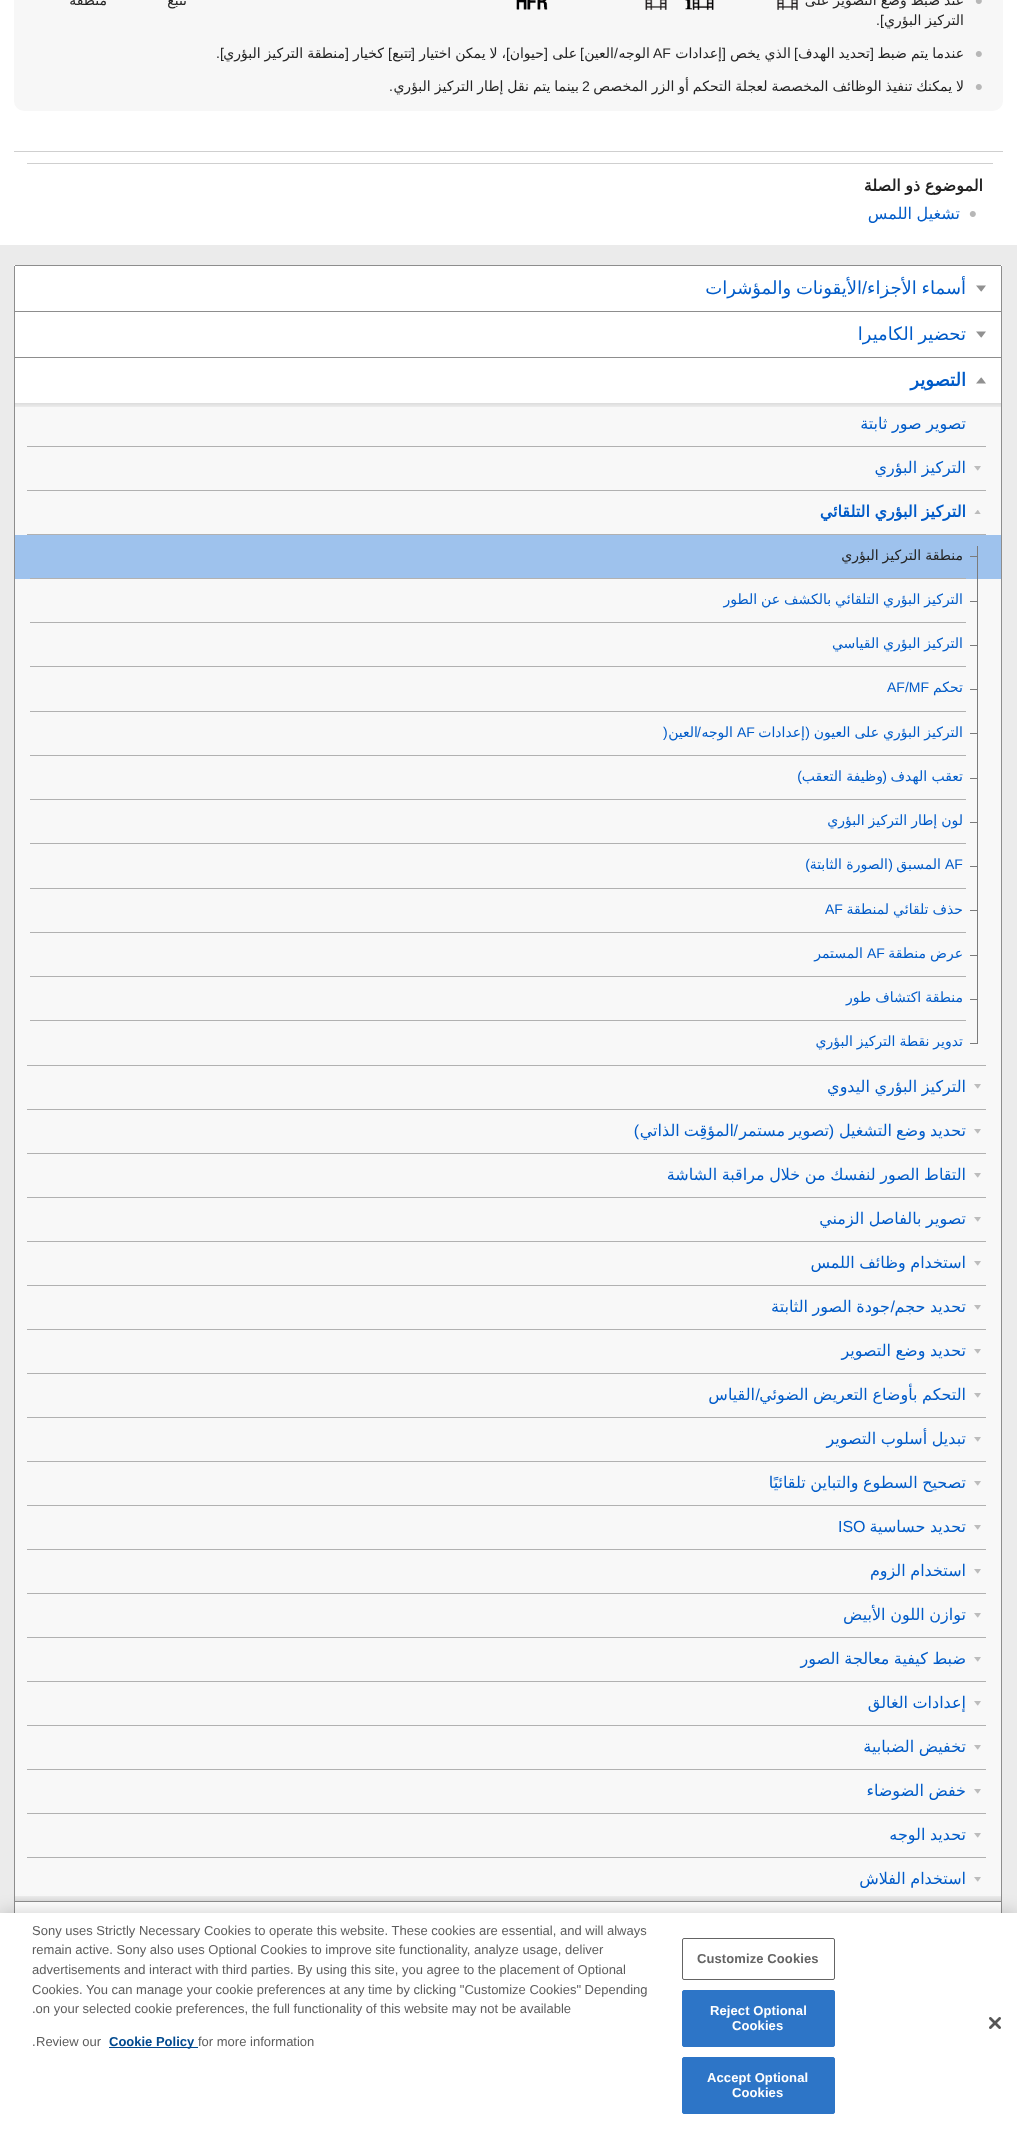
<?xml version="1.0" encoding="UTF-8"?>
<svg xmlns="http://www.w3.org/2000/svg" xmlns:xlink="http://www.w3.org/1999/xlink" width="1017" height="2134">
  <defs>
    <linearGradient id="g1" gradientUnits="userSpaceOnUse" x1="508" y1="403" x2="508" y2="407"><stop offset="0" stop-color="#dcdcdc" /><stop offset="1" stop-color="#ececec" /></linearGradient>
    <clipPath id="clip1"><rect x="974" y="510" width="7" height="4" /></clipPath>
    <linearGradient id="g2" gradientUnits="userSpaceOnUse" x1="508" y1="1896" x2="508" y2="1901"><stop offset="0" stop-color="#ececec" /><stop offset="1" stop-color="#dcdcdc" /></linearGradient>
  </defs>
  <rect width="100%" height="100%" fill="#ffffff" />
  <rect x="14" y="-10" width="989" height="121" rx="10" fill="#f7f7f7" />
  <image x="975" y="0" width="7" height="4" xlink:href="image1.png" />
  <image x="777" y="0" width="21" height="10" xlink:href="image2.png" />
  <image x="685" y="0" width="29" height="10" xlink:href="image3.png" />
  <image x="645" y="0" width="22" height="10" xlink:href="image4.png" />
  <image x="516" y="0" width="32" height="10" xlink:href="image5.png" />
  <image x="975" y="51" width="7" height="6" xlink:href="image6.png" />
  <image x="975" y="84" width="7" height="6" xlink:href="image6.png" />
  <rect x="14" y="151" width="989" height="1" fill="#cfcfcf" />
  <rect x="27" y="163" width="966" height="1" fill="#cfcfcf" />
  <image x="969" y="211" width="7" height="6" xlink:href="image7.png" />
  <rect y="245" width="1017" height="1668" fill="#ebebeb" />
  <rect x="14" y="265" width="988" height="1648" fill="#ffffff" />
  <rect x="15" y="265" width="986" height="1" fill="#8d8d8d" />
  <rect x="1001" y="266" width="1" height="45" fill="#8d8d8d" />
  <rect x="14" y="266" width="1" height="45" fill="#8d8d8d" />
  <path d="M 976 285.5 l 5 6 h 0.5 l 4.5 -6 z" fill="#919191" />
  <rect x="14" y="311" width="988" height="1" fill="#8d8d8d" />
  <rect x="1001" y="311" width="1" height="46" fill="#8d8d8d" />
  <rect x="14" y="311" width="1" height="46" fill="#8d8d8d" />
  <path d="M 976 331.5 l 5 6 h 0.5 l 4.5 -6 z" fill="#919191" />
  <rect x="14" y="357" width="988" height="1" fill="#8d8d8d" />
  <rect x="1001" y="357" width="1" height="1544" fill="#8d8d8d" />
  <rect x="14" y="357" width="1" height="1544" fill="#8d8d8d" />
  <path d="M 976 383.5 l 5 -6 h 0.5 l 4.5 6 z" fill="#919191" />
  <rect x="15" y="407" width="986" height="1489" fill="#f8f8f8" />
  <rect x="15" y="403" width="986" height="4" fill="url(#g1)" />
  <rect x="27" y="446" width="959" height="1" fill="#b1b1b1" />
  <path d="M 974 466 l 3.5 4.5 h 0.5 l 3 -4.5 z" fill="#bcbcbc" />
  <rect x="27" y="490" width="959" height="1" fill="#b1b1b1" />
  <g clip-path="url(#clip1)">
    <path d="M 974 514.5 l 3.5 -4.5 h 0.5 l 3 4.5 z" fill="#bcbcbc" />
  </g>
  <rect x="27" y="534" width="959" height="1" fill="#b1b1b1" />
  <rect x="15" y="535" width="986" height="44" fill="#9ec2ed" />
  <rect x="970" y="556" width="8" height="1" fill="#7b7b7b" />
  <rect x="970" y="601" width="8" height="1" fill="#7b7b7b" />
  <rect x="970" y="645" width="8" height="1" fill="#7b7b7b" />
  <rect x="970" y="689" width="8" height="1" fill="#7b7b7b" />
  <rect x="970" y="733" width="8" height="1" fill="#7b7b7b" />
  <rect x="970" y="778" width="8" height="1" fill="#7b7b7b" />
  <rect x="970" y="822" width="8" height="1" fill="#7b7b7b" />
  <rect x="970" y="866" width="8" height="1" fill="#7b7b7b" />
  <rect x="970" y="910" width="8" height="1" fill="#7b7b7b" />
  <rect x="970" y="955" width="8" height="1" fill="#7b7b7b" />
  <rect x="970" y="999" width="8" height="1" fill="#7b7b7b" />
  <rect x="977" y="546" width="1" height="497" fill="#7b7b7b" />
  <rect x="30" y="578" width="936" height="1" fill="#b1b1b1" />
  <rect x="30" y="622" width="936" height="1" fill="#b1b1b1" />
  <rect x="30" y="666" width="936" height="1" fill="#b1b1b1" />
  <rect x="30" y="711" width="936" height="1" fill="#b1b1b1" />
  <rect x="30" y="755" width="936" height="1" fill="#b1b1b1" />
  <rect x="30" y="799" width="936" height="1" fill="#b1b1b1" />
  <rect x="30" y="843" width="936" height="1" fill="#b1b1b1" />
  <rect x="30" y="888" width="936" height="1" fill="#b1b1b1" />
  <rect x="30" y="932" width="936" height="1" fill="#b1b1b1" />
  <rect x="30" y="976" width="936" height="1" fill="#b1b1b1" />
  <rect x="30" y="1020" width="936" height="1" fill="#b1b1b1" />
  <rect x="970" y="1043" width="8" height="1" fill="#7b7b7b" />
  <path d="M 974 1084 l 3.5 4.5 h 0.5 l 3 -4.5 z" fill="#bcbcbc" />
  <rect x="27" y="1065" width="959" height="1" fill="#b1b1b1" />
  <rect x="27" y="1109" width="959" height="1" fill="#b1b1b1" />
  <path d="M 974 1129 l 3.5 4.5 h 0.5 l 3 -4.5 z" fill="#bcbcbc" />
  <rect x="27" y="1153" width="959" height="1" fill="#b1b1b1" />
  <path d="M 974 1173 l 3.5 4.5 h 0.5 l 3 -4.5 z" fill="#bcbcbc" />
  <rect x="27" y="1197" width="959" height="1" fill="#b1b1b1" />
  <path d="M 974 1217 l 3.5 4.5 h 0.5 l 3 -4.5 z" fill="#bcbcbc" />
  <rect x="27" y="1241" width="959" height="1" fill="#b1b1b1" />
  <path d="M 974 1261 l 3.5 4.5 h 0.5 l 3 -4.5 z" fill="#bcbcbc" />
  <rect x="27" y="1285" width="959" height="1" fill="#b1b1b1" />
  <path d="M 974 1305 l 3.5 4.5 h 0.5 l 3 -4.5 z" fill="#bcbcbc" />
  <rect x="27" y="1329" width="959" height="1" fill="#b1b1b1" />
  <path d="M 974 1349 l 3.5 4.5 h 0.5 l 3 -4.5 z" fill="#bcbcbc" />
  <rect x="27" y="1373" width="959" height="1" fill="#b1b1b1" />
  <path d="M 974 1393 l 3.5 4.5 h 0.5 l 3 -4.5 z" fill="#bcbcbc" />
  <rect x="27" y="1417" width="959" height="1" fill="#b1b1b1" />
  <path d="M 974 1437 l 3.5 4.5 h 0.5 l 3 -4.5 z" fill="#bcbcbc" />
  <rect x="27" y="1461" width="959" height="1" fill="#b1b1b1" />
  <path d="M 974 1481 l 3.5 4.5 h 0.5 l 3 -4.5 z" fill="#bcbcbc" />
  <rect x="27" y="1505" width="959" height="1" fill="#b1b1b1" />
  <path d="M 974 1525 l 3.5 4.5 h 0.5 l 3 -4.5 z" fill="#bcbcbc" />
  <rect x="27" y="1549" width="959" height="1" fill="#b1b1b1" />
  <path d="M 974 1569 l 3.5 4.5 h 0.5 l 3 -4.5 z" fill="#bcbcbc" />
  <rect x="27" y="1593" width="959" height="1" fill="#b1b1b1" />
  <path d="M 974 1613 l 3.5 4.5 h 0.5 l 3 -4.5 z" fill="#bcbcbc" />
  <rect x="27" y="1637" width="959" height="1" fill="#b1b1b1" />
  <path d="M 974 1657 l 3.5 4.5 h 0.5 l 3 -4.5 z" fill="#bcbcbc" />
  <rect x="27" y="1681" width="959" height="1" fill="#b1b1b1" />
  <path d="M 974 1701 l 3.5 4.5 h 0.5 l 3 -4.5 z" fill="#bcbcbc" />
  <rect x="27" y="1725" width="959" height="1" fill="#b1b1b1" />
  <path d="M 974 1745 l 3.5 4.5 h 0.5 l 3 -4.5 z" fill="#bcbcbc" />
  <rect x="27" y="1769" width="959" height="1" fill="#b1b1b1" />
  <path d="M 974 1789 l 3.5 4.5 h 0.5 l 3 -4.5 z" fill="#bcbcbc" />
  <rect x="27" y="1813" width="959" height="1" fill="#b1b1b1" />
  <path d="M 974 1833 l 3.5 4.5 h 0.5 l 3 -4.5 z" fill="#bcbcbc" />
  <rect x="27" y="1857" width="959" height="1" fill="#b1b1b1" />
  <path d="M 974 1877 l 3.5 4.5 h 0.5 l 3 -4.5 z" fill="#bcbcbc" />
  <rect x="15" y="1896" width="986" height="5" fill="url(#g2)" />
  <rect x="14" y="1901" width="988" height="1" fill="#8d8d8d" />
  <rect x="1001" y="1901" width="1" height="12" fill="#8d8d8d" />
  <rect x="14" y="1901" width="1" height="12" fill="#8d8d8d" />
  <rect y="1913" width="1017" height="221" fill="#000000" fill-opacity="0.2" filter="blur(9px)" />
  <rect y="1913" width="1017" height="221" fill="#ffffff" />
  <image x="989" y="2017" width="12" height="12" xlink:href="image8.png" />
  <rect x="682.5" y="1938.5" width="152" height="41" rx="1.5" fill="none" stroke="#646464" />
  <rect x="682.5" y="1990.5" width="152" height="56" rx="1.5" fill="#2d75c7" stroke="#2d75c7" />
  <rect x="682.5" y="2057.5" width="152" height="56" rx="1.5" fill="#2d75c7" stroke="#2d75c7" />
  <rect x="109" y="2047" width="89" height="1" fill="#01498e" />
  <text x="964" y="5" word-spacing="-0.5" style="font-family: DejaVu Sans; font-size: 14px; direction: rtl; fill: #232323">عند ضبط وضع التصوير على</text>
  <text x="187" y="5" style="font-family: DejaVu Sans; font-size: 14px; direction: rtl; fill: #232323">تتبع</text>
  <text x="107" y="5" style="font-family: DejaVu Sans; font-size: 14px; direction: rtl; fill: #232323">منطقة</text>
  <text x="964" y="25" word-spacing="-0.5" style="font-family: DejaVu Sans; font-size: 14px; direction: rtl; fill: #232323">التركيز البؤري</text>
  <text x="884" y="25" style="font-family: Liberation Sans; font-size: 14px; direction: rtl; fill: #232323">]</text>
  <text x="876" y="25" style="font-family: Liberation Sans; font-size: 14px; fill: #232323">.</text>
  <text x="964" y="58" word-spacing="-0.5" style="font-family: DejaVu Sans; font-size: 14px; direction: rtl; fill: #232323">عندما يتم ضبط</text>
  <text x="874" y="58" style="font-family: Liberation Sans; font-size: 14px; direction: rtl; fill: #232323">[</text>
  <text x="870" y="58" word-spacing="-0.5" style="font-family: DejaVu Sans; font-size: 14px; direction: rtl; fill: #232323">تحديد الهدف</text>
  <text x="798" y="58" style="font-family: Liberation Sans; font-size: 14px; direction: rtl; fill: #232323">]</text>
  <text x="791" y="58" style="font-family: DejaVu Sans; font-size: 14px; direction: rtl; fill: #232323">الذي يخص</text>
  <text x="726" y="58" style="font-family: Liberation Sans; font-size: 14px; direction: rtl; fill: #232323">[</text>
  <text x="722" y="58" style="font-family: DejaVu Sans; font-size: 14px; direction: rtl; fill: #232323">إعدادات</text>
  <text x="653" y="58" style="font-family: Liberation Sans; font-size: 14px; fill: #232323">AF</text>
  <text x="650" y="58" style="font-family: DejaVu Sans; font-size: 14px; direction: rtl; fill: #232323">الوجه</text>
  <text x="618" y="58" style="font-family: Liberation Sans; font-size: 14px; direction: rtl; fill: #232323">/</text>
  <text x="614" y="58" style="font-family: DejaVu Sans; font-size: 14px; direction: rtl; fill: #232323">العين</text>
  <text x="584" y="58" style="font-family: Liberation Sans; font-size: 14px; direction: rtl; fill: #232323">]</text>
  <text x="577" y="58" style="font-family: DejaVu Sans; font-size: 14px; direction: rtl; fill: #232323">على</text>
  <text x="548" y="58" style="font-family: Liberation Sans; font-size: 14px; direction: rtl; fill: #232323">[</text>
  <text x="544" y="58" style="font-family: DejaVu Sans; font-size: 14px; direction: rtl; fill: #232323">حيوان</text>
  <text x="510" y="58" style="font-family: Liberation Sans; font-size: 14px; direction: rtl; fill: #232323">]</text>
  <text x="506" y="58" word-spacing="-0.5" style="font-family: DejaVu Sans; font-size: 14px; direction: rtl; fill: #232323">، لا يمكن اختيار</text>
  <text x="415" y="58" style="font-family: Liberation Sans; font-size: 14px; direction: rtl; fill: #232323">[</text>
  <text x="412" y="58" style="font-family: DejaVu Sans; font-size: 14px; direction: rtl; fill: #232323">تتبع</text>
  <text x="392" y="58" style="font-family: Liberation Sans; font-size: 14px; direction: rtl; fill: #232323">]</text>
  <text x="384" y="58" style="font-family: DejaVu Sans; font-size: 14px; direction: rtl; fill: #232323">كخيار</text>
  <text x="349" y="58" style="font-family: Liberation Sans; font-size: 14px; direction: rtl; fill: #232323">[</text>
  <text x="345" y="58" word-spacing="-0.5" style="font-family: DejaVu Sans; font-size: 14px; direction: rtl; fill: #232323">منطقة التركيز البؤري</text>
  <text x="224" y="58" style="font-family: Liberation Sans; font-size: 14px; direction: rtl; fill: #232323">]</text>
  <text x="216" y="58" style="font-family: Liberation Sans; font-size: 14px; fill: #232323">.</text>
  <text x="964" y="91" word-spacing="-0.5" style="font-family: DejaVu Sans; font-size: 14px; direction: rtl; fill: #232323">لا يمكنك تنفيذ الوظائف المخصصة لعجلة التحكم أو الزر المخصص</text>
  <text x="582" y="91" style="font-family: Liberation Sans; font-size: 14px; fill: #232323">2</text>
  <text x="579" y="91" word-spacing="-0.5" style="font-family: DejaVu Sans; font-size: 14px; direction: rtl; fill: #232323">بينما يتم نقل إطار التركيز البؤري</text>
  <text x="393" y="91" style="font-family: Liberation Sans; font-size: 14px; direction: rtl; fill: #232323">.</text>
  <text x="983" y="191" word-spacing="-0.5" style="font-family: DejaVu Sans; font-size: 16px; font-weight: bold; direction: rtl; fill: #232323">الموضوع ذو الصلة</text>
  <text x="960" y="219" word-spacing="-0.5" style="font-family: DejaVu Sans; font-size: 16px; direction: rtl; fill: #005bc8">تشغيل اللمس</text>
  <text x="966" y="294" word-spacing="-1" style="font-family: DejaVu Sans; font-size: 18px; direction: rtl; fill: #005bc8">أسماء الأجزاء</text>
  <text x="867" y="294" style="font-family: Liberation Sans; font-size: 18px; direction: rtl; fill: #005bc8">/</text>
  <text x="862" y="294" word-spacing="-1" style="font-family: DejaVu Sans; font-size: 18px; direction: rtl; fill: #005bc8">الأيقونات والمؤشرات</text>
  <text x="966" y="340" word-spacing="-1" style="font-family: DejaVu Sans; font-size: 18px; direction: rtl; fill: #005bc8">تحضير الكاميرا</text>
  <text x="966" y="386" style="font-family: DejaVu Sans; font-size: 18px; font-weight: bold; direction: rtl; fill: #005bc8">التصوير</text>
  <text x="966" y="429" word-spacing="-0.5" style="font-family: DejaVu Sans; font-size: 16px; direction: rtl; fill: #005bc8">تصوير صور ثابتة</text>
  <text x="966" y="473" word-spacing="-0.5" style="font-family: DejaVu Sans; font-size: 16px; direction: rtl; fill: #005bc8">التركيز البؤري</text>
  <text x="966" y="517" word-spacing="-0.5" style="font-family: DejaVu Sans; font-size: 16px; font-weight: bold; direction: rtl; fill: #005bc8">التركيز البؤري التلقائي</text>
  <text x="963" y="560" word-spacing="-0.5" style="font-family: DejaVu Sans; font-size: 14px; direction: rtl; fill: #232323">منطقة التركيز البؤري</text>
  <text x="963" y="604" word-spacing="-0.5" style="font-family: DejaVu Sans; font-size: 14px; direction: rtl; fill: #005bc8">التركيز البؤري التلقائي بالكشف عن الطور</text>
  <text x="963" y="648" word-spacing="-0.5" style="font-family: DejaVu Sans; font-size: 14px; direction: rtl; fill: #005bc8">التركيز البؤري القياسي</text>
  <text x="963" y="692" style="font-family: DejaVu Sans; font-size: 14px; direction: rtl; fill: #005bc8">تحكم</text>
  <text x="887" y="692" style="font-family: Liberation Sans; font-size: 14px; fill: #005bc8">AF/MF</text>
  <text x="963" y="737" word-spacing="-0.5" style="font-family: DejaVu Sans; font-size: 14px; direction: rtl; fill: #005bc8">التركيز البؤري على العيون</text>
  <text x="810" y="737" style="font-family: Liberation Sans; font-size: 14px; direction: rtl; fill: #005bc8">(</text>
  <text x="805" y="737" style="font-family: DejaVu Sans; font-size: 14px; direction: rtl; fill: #005bc8">إعدادات</text>
  <text x="737" y="737" style="font-family: Liberation Sans; font-size: 14px; fill: #005bc8">AF</text>
  <text x="733" y="737" style="font-family: DejaVu Sans; font-size: 14px; direction: rtl; fill: #005bc8">الوجه</text>
  <text x="701" y="737" style="font-family: Liberation Sans; font-size: 14px; direction: rtl; fill: #005bc8">/</text>
  <text x="698" y="737" style="font-family: DejaVu Sans; font-size: 14px; direction: rtl; fill: #005bc8">العين</text>
  <text x="663" y="737" style="font-family: Liberation Sans; font-size: 14px; fill: #005bc8">)</text>
  <text x="963" y="781" style="font-family: DejaVu Sans; font-size: 14px; direction: rtl; fill: #005bc8">تعقب الهدف</text>
  <text x="887" y="781" style="font-family: Liberation Sans; font-size: 14px; direction: rtl; fill: #005bc8">(</text>
  <text x="883" y="781" style="font-family: DejaVu Sans; font-size: 14px; direction: rtl; fill: #005bc8">وظيفة التعقب</text>
  <text x="802" y="781" style="font-family: Liberation Sans; font-size: 14px; direction: rtl; fill: #005bc8">)</text>
  <text x="963" y="825" word-spacing="-0.5" style="font-family: DejaVu Sans; font-size: 14px; direction: rtl; fill: #005bc8">لون إطار التركيز البؤري</text>
  <text x="945" y="869" style="font-family: Liberation Sans; font-size: 14px; fill: #005bc8">AF</text>
  <text x="941" y="869" style="font-family: DejaVu Sans; font-size: 14px; direction: rtl; fill: #005bc8">المسبق</text>
  <text x="893" y="869" style="font-family: Liberation Sans; font-size: 14px; direction: rtl; fill: #005bc8">(</text>
  <text x="888" y="869" style="font-family: DejaVu Sans; font-size: 14px; direction: rtl; fill: #005bc8">الصورة الثابتة</text>
  <text x="810" y="869" style="font-family: Liberation Sans; font-size: 14px; direction: rtl; fill: #005bc8">)</text>
  <text x="963" y="914" word-spacing="-0.5" style="font-family: DejaVu Sans; font-size: 14px; direction: rtl; fill: #005bc8">حذف تلقائي لمنطقة</text>
  <text x="825" y="914" style="font-family: Liberation Sans; font-size: 14px; fill: #005bc8">AF</text>
  <text x="963" y="958" word-spacing="-0.5" style="font-family: DejaVu Sans; font-size: 14px; direction: rtl; fill: #005bc8">عرض منطقة</text>
  <text x="867" y="958" style="font-family: Liberation Sans; font-size: 14px; fill: #005bc8">AF</text>
  <text x="863" y="958" style="font-family: DejaVu Sans; font-size: 14px; direction: rtl; fill: #005bc8">المستمر</text>
  <text x="963" y="1002" word-spacing="-0.5" style="font-family: DejaVu Sans; font-size: 14px; direction: rtl; fill: #005bc8">منطقة اكتشاف طور</text>
  <text x="963" y="1046" word-spacing="-0.5" style="font-family: DejaVu Sans; font-size: 14px; direction: rtl; fill: #005bc8">تدوير نقطة التركيز البؤري</text>
  <text x="966" y="1092" word-spacing="-0.5" style="font-family: DejaVu Sans; font-size: 16px; direction: rtl; fill: #005bc8">التركيز البؤري اليدوي</text>
  <text x="966" y="1136" word-spacing="-1" style="font-family: DejaVu Sans; font-size: 16px; direction: rtl; fill: #005bc8">تحديد وضع التشغيل</text>
  <text x="834" y="1136" style="font-family: Liberation Sans; font-size: 16px; direction: rtl; fill: #005bc8">(</text>
  <text x="738" y="1136" style="font-family: Liberation Sans; font-size: 16px; direction: rtl; fill: #005bc8">/</text>
  <text x="829" y="1136" word-spacing="-1" style="font-family: DejaVu Sans; font-size: 16px; direction: rtl; fill: #005bc8">تصوير مستمر</text>
  <text x="734" y="1136" word-spacing="-1" style="font-family: DejaVu Sans; font-size: 16px; direction: rtl; fill: #005bc8">المؤقِت الذاتي</text>
  <text x="639" y="1136" style="font-family: Liberation Sans; font-size: 16px; direction: rtl; fill: #005bc8">)</text>
  <text x="966" y="1180" word-spacing="-0.5" style="font-family: DejaVu Sans; font-size: 16px; direction: rtl; fill: #005bc8">التقاط الصور لنفسك من خلال مراقبة الشاشة</text>
  <text x="966" y="1224" word-spacing="-0.5" style="font-family: DejaVu Sans; font-size: 16px; direction: rtl; fill: #005bc8">تصوير بالفاصل الزمني</text>
  <text x="966" y="1268" word-spacing="-0.5" style="font-family: DejaVu Sans; font-size: 16px; direction: rtl; fill: #005bc8">استخدام وظائف اللمس</text>
  <text x="966" y="1312" word-spacing="-0.5" style="font-family: DejaVu Sans; font-size: 16px; direction: rtl; fill: #005bc8">تحديد حجم</text>
  <text x="890" y="1312" word-spacing="-0.5" style="font-family: DejaVu Sans; font-size: 16px; direction: rtl; fill: #005bc8">جودة الصور الثابتة</text>
  <text x="895" y="1312" style="font-family: Liberation Sans; font-size: 16px; direction: rtl; fill: #005bc8">/</text>
  <text x="966" y="1356" word-spacing="-0.5" style="font-family: DejaVu Sans; font-size: 16px; direction: rtl; fill: #005bc8">تحديد وضع التصوير</text>
  <text x="966" y="1400" word-spacing="-0.5" style="font-family: DejaVu Sans; font-size: 16px; direction: rtl; fill: #005bc8">التحكم بأوضاع التعريض الضوئي</text>
  <text x="760" y="1400" style="font-family: Liberation Sans; font-size: 16px; direction: rtl; fill: #005bc8">/</text>
  <text x="755" y="1400" style="font-family: DejaVu Sans; font-size: 16px; direction: rtl; fill: #005bc8">القياس</text>
  <text x="966" y="1444" word-spacing="-0.5" style="font-family: DejaVu Sans; font-size: 16px; direction: rtl; fill: #005bc8">تبديل أسلوب التصوير</text>
  <text x="966" y="1488" word-spacing="-0.5" style="font-family: DejaVu Sans; font-size: 16px; direction: rtl; fill: #005bc8">تصحيح السطوع والتباين تلقائيًا</text>
  <text x="966" y="1532" word-spacing="-0.5" style="font-family: DejaVu Sans; font-size: 16px; direction: rtl; fill: #005bc8">تحديد حساسية</text>
  <text x="838" y="1532" style="font-family: Liberation Sans; font-size: 16px; fill: #005bc8">ISO</text>
  <text x="966" y="1576" word-spacing="-0.5" style="font-family: DejaVu Sans; font-size: 16px; direction: rtl; fill: #005bc8">استخدام الزوم</text>
  <text x="966" y="1620" word-spacing="-0.5" style="font-family: DejaVu Sans; font-size: 16px; direction: rtl; fill: #005bc8">توازن اللون الأبيض</text>
  <text x="966" y="1664" word-spacing="-0.5" style="font-family: DejaVu Sans; font-size: 16px; direction: rtl; fill: #005bc8">ضبط كيفية معالجة الصور</text>
  <text x="966" y="1708" word-spacing="-0.5" style="font-family: DejaVu Sans; font-size: 16px; direction: rtl; fill: #005bc8">إعدادات الغالق</text>
  <text x="966" y="1752" word-spacing="-0.5" style="font-family: DejaVu Sans; font-size: 16px; direction: rtl; fill: #005bc8">تخفيض الضبابية</text>
  <text x="966" y="1796" word-spacing="-0.5" style="font-family: DejaVu Sans; font-size: 16px; direction: rtl; fill: #005bc8">خفض الضوضاء</text>
  <text x="966" y="1840" word-spacing="-0.5" style="font-family: DejaVu Sans; font-size: 16px; direction: rtl; fill: #005bc8">تحديد الوجه</text>
  <text x="966" y="1884" word-spacing="-0.5" style="font-family: DejaVu Sans; font-size: 16px; direction: rtl; fill: #005bc8">استخدام الفلاش</text>
  <text x="697" y="1963" style="font-family: Liberation Sans; font-size: 13px; font-weight: bold; letter-spacing: 0.1px; fill: #646464">Customize Cookies</text>
  <text x="710" y="2015" style="font-family: Liberation Sans; font-size: 13px; font-weight: bold; letter-spacing: 0.1px; fill: #ffffff">Reject Optional</text>
  <text x="732" y="2030" style="font-family: Liberation Sans; font-size: 13px; font-weight: bold; letter-spacing: 0.1px; fill: #ffffff">Cookies</text>
  <text x="707" y="2082" style="font-family: Liberation Sans; font-size: 13px; font-weight: bold; letter-spacing: 0.1px; fill: #ffffff">Accept Optional</text>
  <text x="732" y="2097" style="font-family: Liberation Sans; font-size: 13px; font-weight: bold; letter-spacing: 0.1px; fill: #ffffff">Cookies</text>
  <text x="32" y="1935" style="font-family: Liberation Sans; font-size: 13px; fill: #5d5d5d">Sony uses Strictly Necessary Cookies to operate this website. These cookies are essential, and will always</text>
  <text x="32" y="1954" style="font-family: Liberation Sans; font-size: 13px; fill: #5d5d5d">remain active. Sony also uses Optional Cookies to improve site functionality, analyze usage, deliver</text>
  <text x="32" y="1974" style="font-family: Liberation Sans; font-size: 13px; fill: #5d5d5d">advertisements and interact with third parties. By using this site, you agree to the placement of Optional</text>
  <text x="32" y="1994" style="font-family: Liberation Sans; font-size: 13px; fill: #5d5d5d">Cookies. You can manage your cookie preferences at any time by clicking "Customize Cookies" Depending</text>
  <text x="32" y="2013" style="font-family: Liberation Sans; font-size: 13px; fill: #5d5d5d">.on your selected cookie preferences, the full functionality of this website may not be available</text>
  <text x="198" y="2046" style="font-family: Liberation Sans; font-size: 13px; fill: #5d5d5d">for more information</text>
  <text x="109" y="2046" style="font-family: Liberation Sans; font-size: 13px; font-weight: bold; fill: #01498e">Cookie Policy</text>
  <text x="36" y="2046" style="font-family: Liberation Sans; font-size: 13px; fill: #5d5d5d">Review our</text>
  <text x="32" y="2046" style="font-family: Liberation Sans; font-size: 13px; fill: #5d5d5d">.</text>
</svg>
